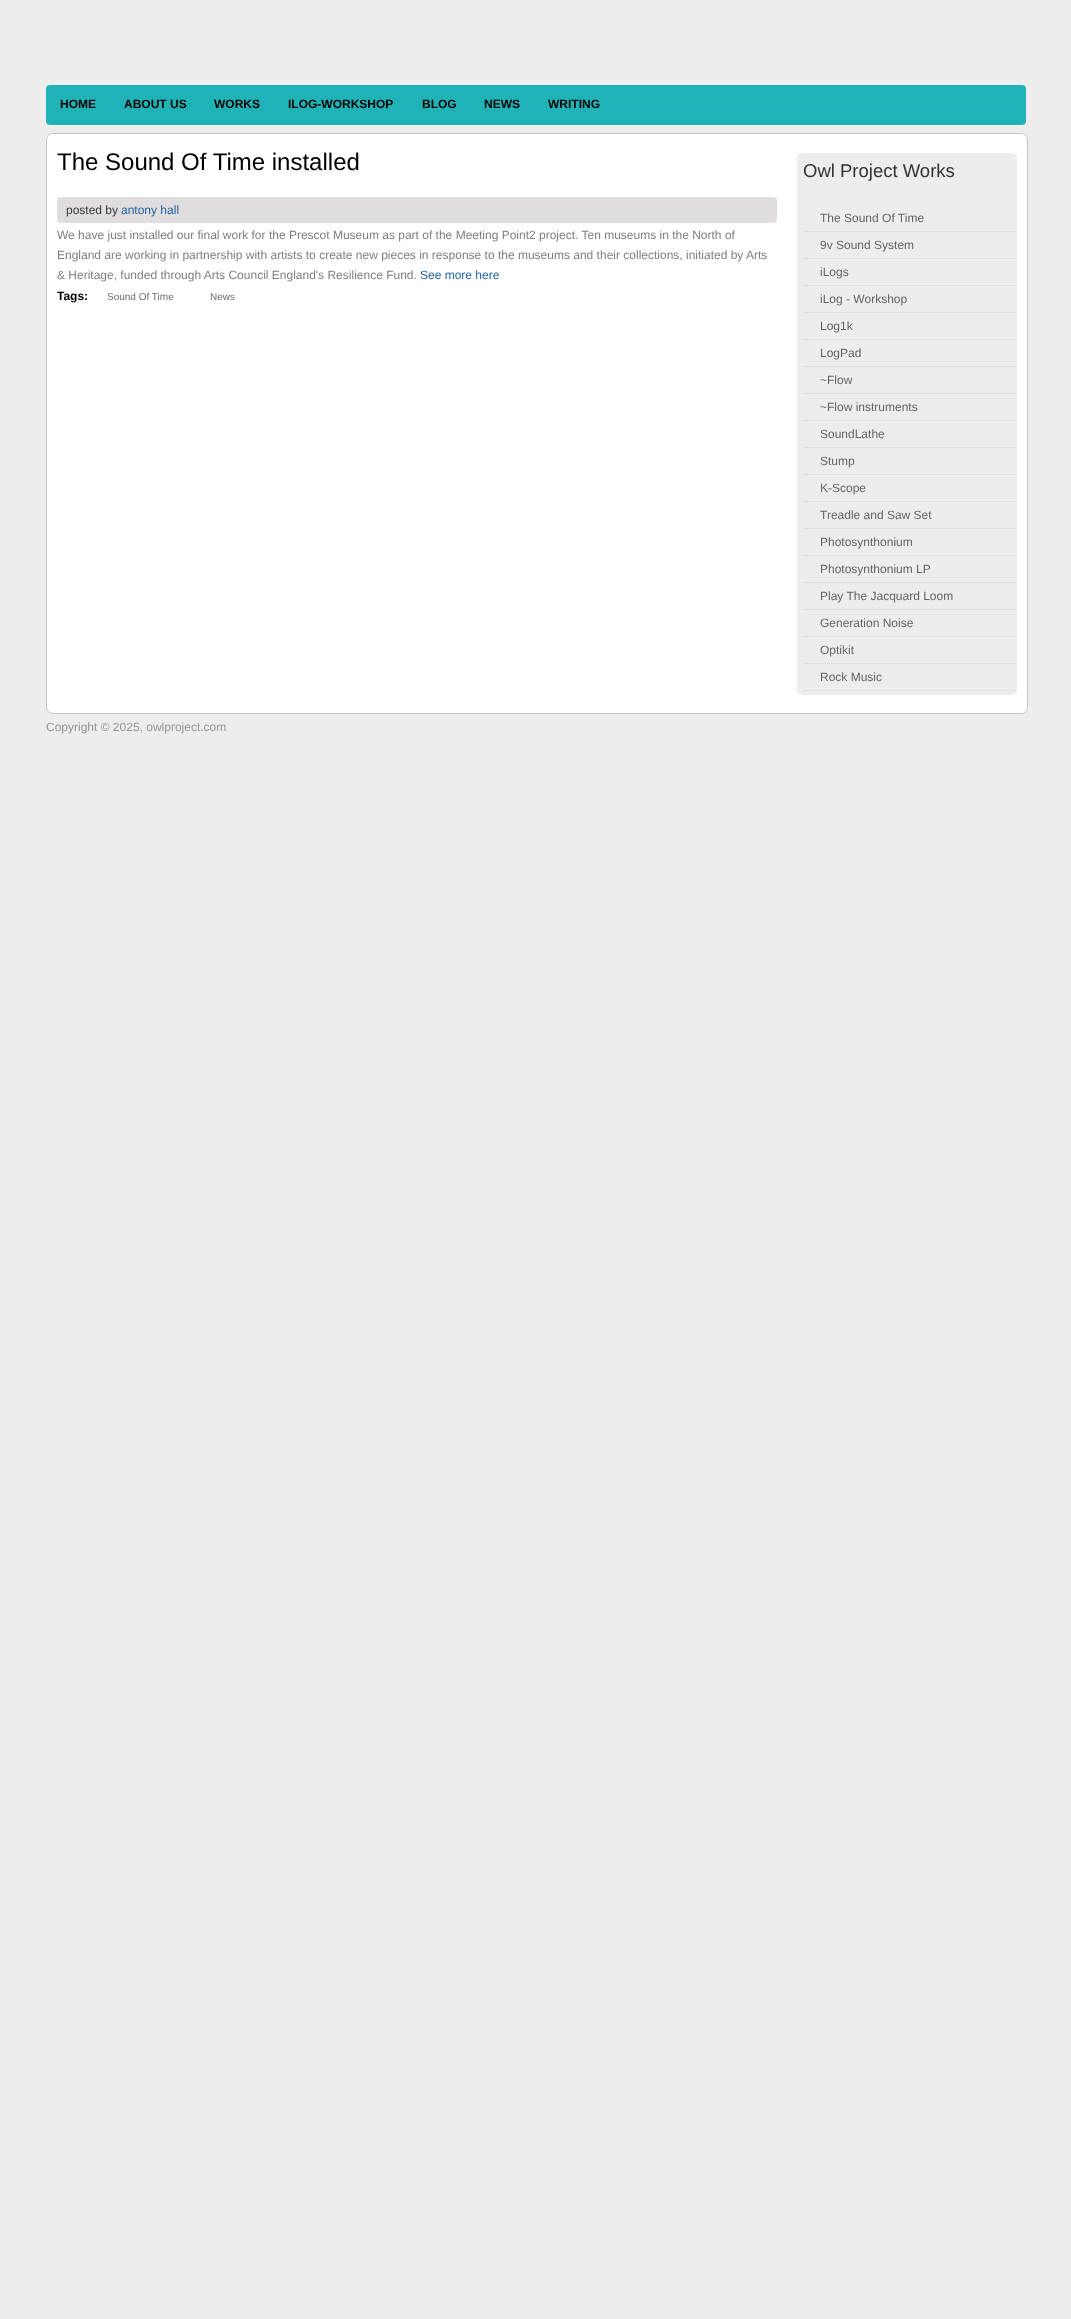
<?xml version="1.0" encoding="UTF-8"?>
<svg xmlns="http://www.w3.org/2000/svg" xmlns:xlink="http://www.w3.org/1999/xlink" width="1071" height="2319">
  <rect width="100%" height="100%" fill="#ededed" />
  <rect x="46" y="85" width="980" height="40" rx="4" fill="#1fb3b7" />
  <rect x="46.5" y="133.5" width="981" height="580" rx="6.5" fill="#ffffff" stroke="#c6c6c6" />
  <rect x="57" y="197" width="720" height="26" rx="4" fill="#dfdddd" />
  <rect x="797" y="153" width="220" height="542" rx="5" fill="#ededee" />
  <path d="M 803 231.5 h 214" fill="none" stroke="#d4d2d2" stroke-dasharray="1 1" />
  <path d="M 803 258.5 h 214" fill="none" stroke="#d4d2d2" stroke-dasharray="1 1" />
  <path d="M 803 285.5 h 214" fill="none" stroke="#d4d2d2" stroke-dasharray="1 1" />
  <path d="M 803 312.5 h 214" fill="none" stroke="#d4d2d2" stroke-dasharray="1 1" />
  <path d="M 803 339.5 h 214" fill="none" stroke="#d4d2d2" stroke-dasharray="1 1" />
  <path d="M 803 366.5 h 214" fill="none" stroke="#d4d2d2" stroke-dasharray="1 1" />
  <path d="M 803 393.5 h 214" fill="none" stroke="#d4d2d2" stroke-dasharray="1 1" />
  <path d="M 803 420.5 h 214" fill="none" stroke="#d4d2d2" stroke-dasharray="1 1" />
  <path d="M 803 447.5 h 214" fill="none" stroke="#d4d2d2" stroke-dasharray="1 1" />
  <path d="M 803 474.5 h 214" fill="none" stroke="#d4d2d2" stroke-dasharray="1 1" />
  <path d="M 803 501.5 h 214" fill="none" stroke="#d4d2d2" stroke-dasharray="1 1" />
  <path d="M 803 528.5 h 214" fill="none" stroke="#d4d2d2" stroke-dasharray="1 1" />
  <path d="M 803 555.5 h 214" fill="none" stroke="#d4d2d2" stroke-dasharray="1 1" />
  <path d="M 803 582.5 h 214" fill="none" stroke="#d4d2d2" stroke-dasharray="1 1" />
  <path d="M 803 609.5 h 214" fill="none" stroke="#d4d2d2" stroke-dasharray="1 1" />
  <path d="M 803 636.5 h 214" fill="none" stroke="#d4d2d2" stroke-dasharray="1 1" />
  <path d="M 803 663.5 h 214" fill="none" stroke="#d4d2d2" stroke-dasharray="1 1" />
  <path d="M 803 690.5 h 214" fill="none" stroke="#d4d2d2" stroke-dasharray="1 1" />
  <text x="60" y="108" style="font-family: Liberation Sans; font-size: 12px; font-weight: bold; fill: #000000">HOME</text>
  <text x="124" y="108" style="font-family: Liberation Sans; font-size: 12px; font-weight: bold; fill: #000000">ABOUT US</text>
  <text x="214" y="108" style="font-family: Liberation Sans; font-size: 12px; font-weight: bold; fill: #000000">WORKS</text>
  <text x="288" y="108" style="font-family: Liberation Sans; font-size: 12px; font-weight: bold; fill: #000000">ILOG-WORKSHOP</text>
  <text x="422" y="108" style="font-family: Liberation Sans; font-size: 12px; font-weight: bold; fill: #000000">BLOG</text>
  <text x="484" y="108" style="font-family: Liberation Sans; font-size: 12px; font-weight: bold; fill: #000000">NEWS</text>
  <text x="548" y="108" style="font-family: Liberation Sans; font-size: 12px; font-weight: bold; fill: #000000">WRITING</text>
  <text x="57" y="170" style="font-family: Liberation Sans; font-size: 24px; fill: #000000">The Sound Of Time installed</text>
  <text x="66" y="214" style="font-family: Liberation Sans; font-size: 12px; fill: #383838">posted by</text>
  <text x="121" y="214" style="font-family: Liberation Sans; font-size: 12px; fill: #2262a4">antony hall</text>
  <text x="57" y="239" style="font-family: Liberation Sans; font-size: 12px; fill: #7e7e7e">We have just installed our final work for the Prescot Museum as part of the Meeting Point2 project. Ten museums in the North of</text>
  <text x="57" y="259" style="font-family: Liberation Sans; font-size: 12px; fill: #7e7e7e">England are working in partnership with artists to create new pieces in response to the museums and their collections, initiated by Arts</text>
  <text x="57" y="279" style="font-family: Liberation Sans; font-size: 12px; fill: #7e7e7e">&amp; Heritage, funded through Arts Council England's Resilience Fund.</text>
  <text x="420" y="279" style="font-family: Liberation Sans; font-size: 12px; fill: #2262a4">See more here</text>
  <text x="57" y="300" style="font-family: Liberation Sans; font-size: 12px; font-weight: bold; fill: #000000">Tags:</text>
  <text x="107" y="300" style="font-family: Liberation Sans; font-size: 10px; fill: #6c6c6c">Sound Of Time</text>
  <text x="210" y="300" style="font-family: Liberation Sans; font-size: 10px; fill: #6c6c6c">News</text>
  <text x="803" y="177" style="font-family: Liberation Sans; font-size: 18.5px; fill: #323232">Owl Project Works</text>
  <text x="820" y="222" style="font-family: Liberation Sans; font-size: 12px; fill: #636363">The Sound Of Time</text>
  <text x="820" y="249" style="font-family: Liberation Sans; font-size: 12px; fill: #636363">9v Sound System</text>
  <text x="820" y="276" style="font-family: Liberation Sans; font-size: 12px; fill: #636363">iLogs</text>
  <text x="820" y="303" style="font-family: Liberation Sans; font-size: 12px; fill: #636363">iLog - Workshop</text>
  <text x="820" y="330" style="font-family: Liberation Sans; font-size: 12px; fill: #636363">Log1k</text>
  <text x="820" y="357" style="font-family: Liberation Sans; font-size: 12px; fill: #636363">LogPad</text>
  <text x="820" y="384" style="font-family: Liberation Sans; font-size: 12px; fill: #636363">~Flow</text>
  <text x="820" y="411" style="font-family: Liberation Sans; font-size: 12px; fill: #636363">~Flow instruments</text>
  <text x="820" y="438" style="font-family: Liberation Sans; font-size: 12px; fill: #636363">SoundLathe</text>
  <text x="820" y="465" style="font-family: Liberation Sans; font-size: 12px; fill: #636363">Stump</text>
  <text x="820" y="492" style="font-family: Liberation Sans; font-size: 12px; fill: #636363">K-Scope</text>
  <text x="820" y="519" style="font-family: Liberation Sans; font-size: 12px; fill: #636363">Treadle and Saw Set</text>
  <text x="820" y="546" style="font-family: Liberation Sans; font-size: 12px; fill: #636363">Photosynthonium</text>
  <text x="820" y="573" style="font-family: Liberation Sans; font-size: 12px; fill: #636363">Photosynthonium LP</text>
  <text x="820" y="600" style="font-family: Liberation Sans; font-size: 12px; fill: #636363">Play The Jacquard Loom</text>
  <text x="820" y="627" style="font-family: Liberation Sans; font-size: 12px; fill: #636363">Generation Noise</text>
  <text x="820" y="654" style="font-family: Liberation Sans; font-size: 12px; fill: #636363">Optikit</text>
  <text x="820" y="681" style="font-family: Liberation Sans; font-size: 12px; fill: #636363">Rock Music</text>
  <text x="46" y="731" style="font-family: Liberation Sans; font-size: 12px; fill: #949494">Copyright © 2025, owlproject.com</text>
</svg>
